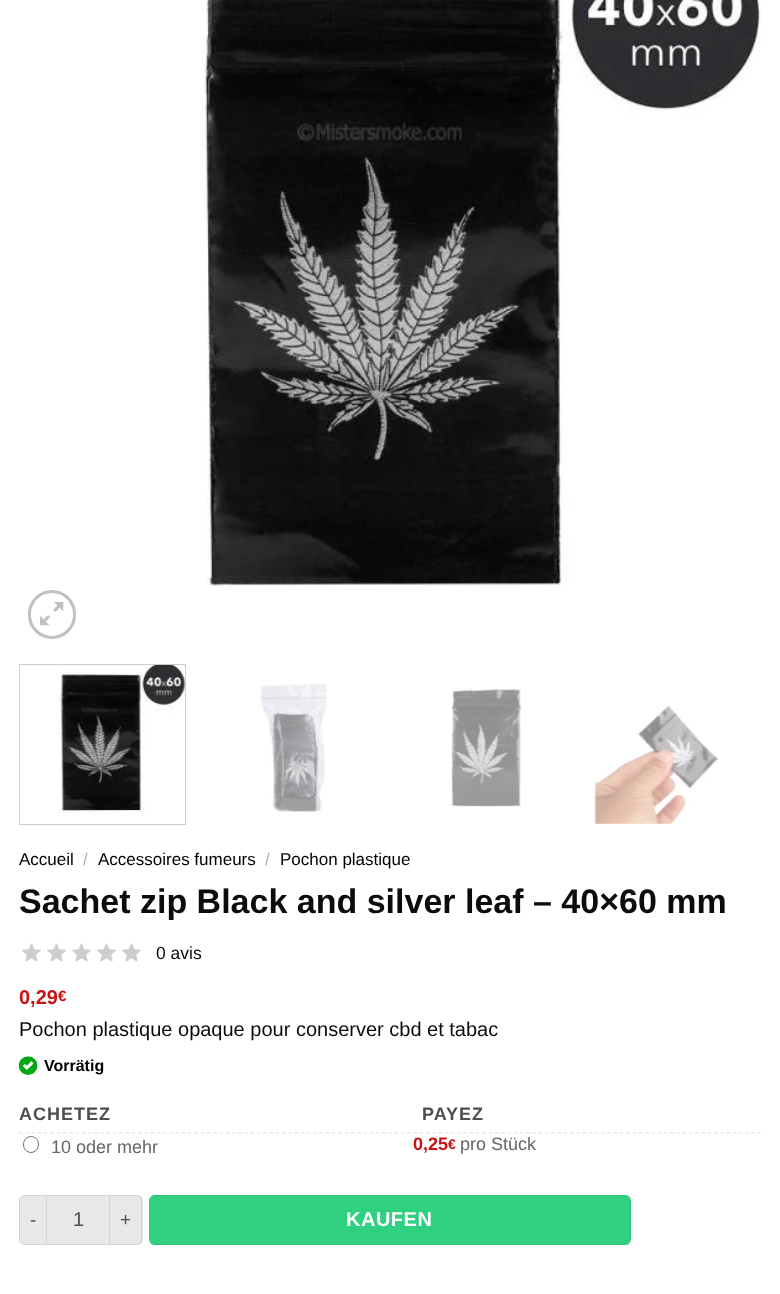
<?xml version="1.0" encoding="UTF-8"?>
<svg xmlns="http://www.w3.org/2000/svg" xmlns:xlink="http://www.w3.org/1999/xlink" width="780" height="1294">
  <rect width="100%" height="100%" fill="#ffffff" />
  <image x="202" y="0" width="559" height="586" xlink:href="image1.png" />
  <rect x="29.5" y="591.5" width="45" height="46" rx="22.5" fill="none" stroke="#c0c0c0" stroke-width="3" />
  <image x="40" y="601" width="24" height="25" xlink:href="image2.png" />
  <rect x="19.5" y="664.5" width="166" height="160" fill="none" stroke="#cccccc" />
  <image x="19" y="665" width="166" height="158" xlink:href="image3.png" />
  <image x="260" y="683" width="67" height="129" xlink:href="image4.png" />
  <image x="451" y="688" width="71" height="119" xlink:href="image5.png" />
  <image x="594" y="706" width="125" height="118" xlink:href="image6.png" />
  <image x="22" y="943" width="119" height="19" xlink:href="image7.png" />
  <image x="19" y="1056" width="19" height="19" xlink:href="image8.png" />
  <path d="M 19 1133 h 742" fill="none" stroke="#dddddd" stroke-width="1.2" stroke-dasharray="3.75 2.51" />
  <rect x="23.5" y="1136.5" width="15" height="16" rx="7.5" fill="none" stroke="#767676" />
  <path d="M 25 1195 h 21 v 50 h -21 c -3.5 0 -6 -2.5 -6 -6 v -38 c 0 -3.5 2.5 -6 6 -6 z" fill="#e8e8e8" />
  <path d="M 25 1195 h 21 v 50 h -21 c -3 0 -6 -3 -6 -6 v -38 c 0 -3 3 -6 6 -6 z m 0 1 h 21 v 48 h -21 c -3 0 -5 -2 -5 -5 v -38 c 0 -3 2 -5 5 -5 z" fill="#000000" fill-opacity="0.09" fill-rule="evenodd" />
  <rect x="46.5" y="1195.5" width="63" height="49" fill="#e8e8e8" stroke="#d3d3d3" />
  <path d="M 110 1195 h 27 c 3.5 0 6 2.5 6 6 v 38 c 0 3.5 -2.5 6 -6 6 h -27 z" fill="#e8e8e8" />
  <path d="M 110 1195 h 26 c 4 0 6 3 6 6 v 38 c 0 3 -2 6 -6 6 h -26 z m 0 1 h 26 c 3 0 5 2 5 5 v 38 c 0 3 -2 5 -5 5 h -26 z" fill="#000000" fill-opacity="0.09" fill-rule="evenodd" />
  <rect x="149" y="1195" width="482" height="50" rx="6" fill="#2fd07f" />
  <rect x="149.5" y="1195.5" width="481" height="49" fill="none" stroke="#000000" stroke-opacity="0.05" />
  <text x="19" y="865" style="font-family: Liberation Sans; font-size: 17px; fill: #000000">Accueil</text>
  <text x="83" y="865" style="font-family: Liberation Sans; font-size: 17px; fill: #b2b2b2">/</text>
  <text x="98" y="865" style="font-family: Liberation Sans; font-size: 17px; fill: #000000">Accessoires fumeurs</text>
  <text x="265" y="865" style="font-family: Liberation Sans; font-size: 17px; fill: #b2b2b2">/</text>
  <text x="280" y="865" style="font-family: Liberation Sans; font-size: 17px; fill: #000000">Pochon plastique</text>
  <text x="19" y="913" style="font-family: Liberation Sans; font-size: 34px; font-weight: bold; fill: #0c0c0c">Sachet zip Black and silver leaf – 40×60 mm</text>
  <text x="156" y="959" style="font-family: Liberation Sans; font-size: 17.5px; fill: #0c0c0c">0 avis</text>
  <text x="19" y="1004" style="font-family: Liberation Sans; font-size: 20px; font-weight: bold; fill: #c91313">0,29</text>
  <text x="58" y="1001" style="font-family: Liberation Sans; font-size: 15px; font-weight: bold; fill: #c91313">€</text>
  <text x="19" y="1036" style="font-family: Liberation Sans; font-size: 20px; fill: #0c0c0c">Pochon plastique opaque pour conserver cbd et tabac</text>
  <text x="44" y="1071" style="font-family: Liberation Sans; font-size: 16px; font-weight: bold; fill: #000000">Vorrätig</text>
  <text x="19" y="1120" style="font-family: Liberation Sans; font-size: 18px; font-weight: bold; letter-spacing: 1px; fill: #4f4f4f">ACHETEZ</text>
  <text x="422" y="1120" style="font-family: Liberation Sans; font-size: 18px; font-weight: bold; letter-spacing: 1px; fill: #4f4f4f">PAYEZ</text>
  <text x="51" y="1153" style="font-family: Liberation Sans; font-size: 18px; fill: #666666">10 oder mehr</text>
  <text x="413" y="1150" style="font-family: Liberation Sans; font-size: 18px; font-weight: bold; fill: #c91313">0,25</text>
  <text x="448" y="1149" style="font-family: Liberation Sans; font-size: 14px; font-weight: bold; fill: #c91313">€</text>
  <text x="460" y="1150" style="font-family: Liberation Sans; font-size: 18px; fill: #666666">pro Stück</text>
  <text x="30" y="1226" style="font-family: Liberation Sans; font-size: 19px; letter-spacing: 1px; fill: #4f4f4f">-</text>
  <text x="73" y="1226" style="font-family: Liberation Sans; font-size: 20px; fill: #4f4f4f">1</text>
  <text x="120" y="1226" style="font-family: Liberation Sans; font-size: 19px; letter-spacing: 1px; fill: #4f4f4f">+</text>
  <text x="346" y="1226" style="font-family: Liberation Sans; font-size: 20px; font-weight: bold; letter-spacing: 0.5px; fill: #ffffff">KAUFEN</text>
</svg>
